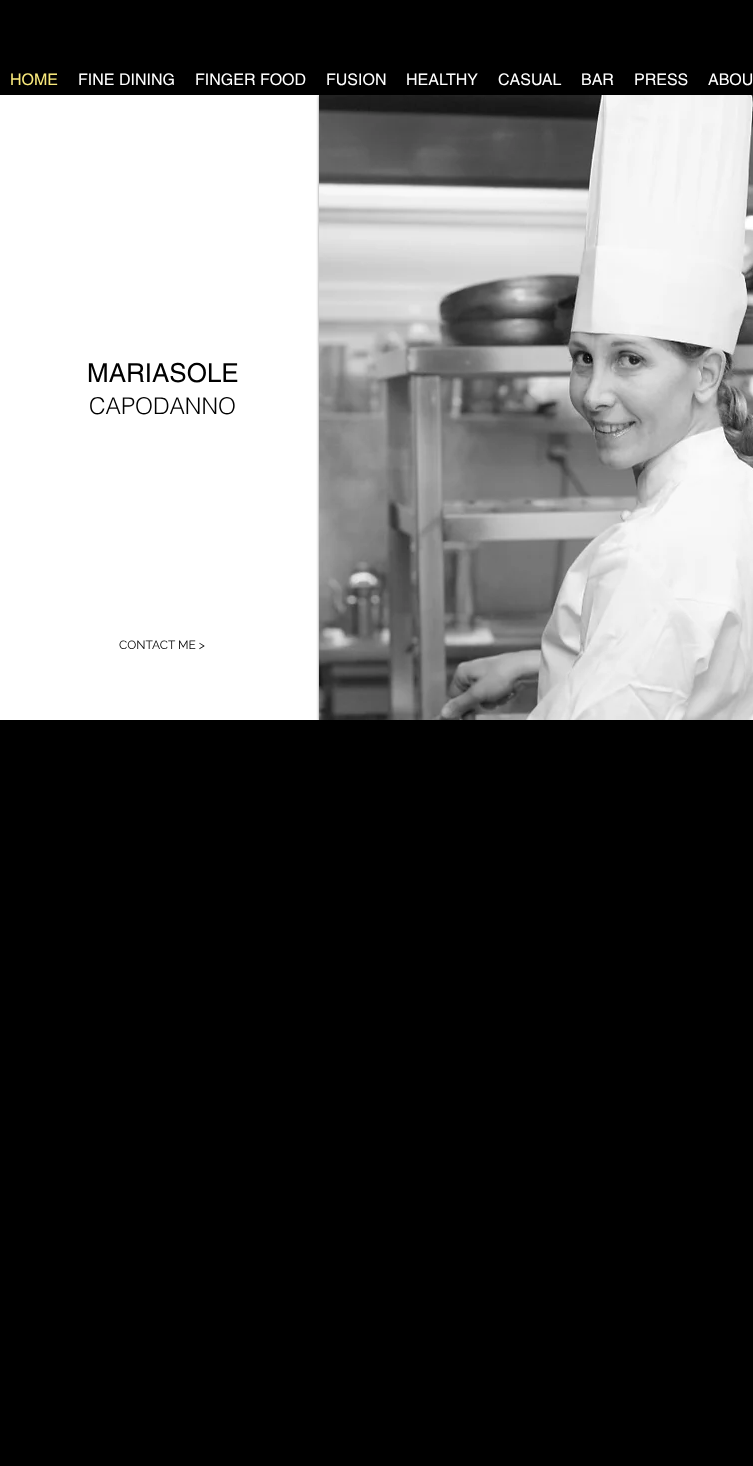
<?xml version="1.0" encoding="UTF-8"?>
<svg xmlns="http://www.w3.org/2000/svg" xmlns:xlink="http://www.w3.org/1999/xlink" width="753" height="1466">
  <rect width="100%" height="100%" fill="#000000" />
  <rect y="95" width="319" height="625" fill="#ffffff" />
  <rect x="319" y="96" width="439" height="625" fill="#000000" fill-opacity="0.5" filter="blur(1.5px)" />
  <image x="319" y="95" width="434" height="625" xlink:href="image1.png" />
  <text x="10" y="85" style="font-family: helvetica; font-size: 16px; fill: #f9e97c">HOME</text>
  <text x="78" y="85" style="font-family: helvetica; font-size: 16px; fill: #ffffff">FINE DINING</text>
  <text x="195" y="85" style="font-family: helvetica; font-size: 16px; fill: #ffffff">FINGER FOOD</text>
  <text x="326" y="85" style="font-family: helvetica; font-size: 16px; fill: #ffffff">FUSION</text>
  <text x="406" y="85" style="font-family: helvetica; font-size: 16px; fill: #ffffff">HEALTHY</text>
  <text x="498" y="85" style="font-family: helvetica; font-size: 16px; fill: #ffffff">CASUAL</text>
  <text x="581" y="85" style="font-family: helvetica; font-size: 16px; fill: #ffffff">BAR</text>
  <text x="634" y="85" style="font-family: helvetica; font-size: 16px; fill: #ffffff">PRESS</text>
  <text x="708" y="85" style="font-family: helvetica; font-size: 16px; fill: #ffffff">ABOU</text>
  <text x="87" y="382" style="font-family: helvetica; font-size: 26px; fill: #000000">MARIASOLE</text>
  <text x="89" y="414" style="font-family: helvetica; font-size: 23px; font-weight: 300; fill: #000000">CAPODANNO</text>
  <text x="119" y="649" style="font-family: Raleway; font-size: 12px; fill: #000000">CONTACT ME &gt;</text>
</svg>
